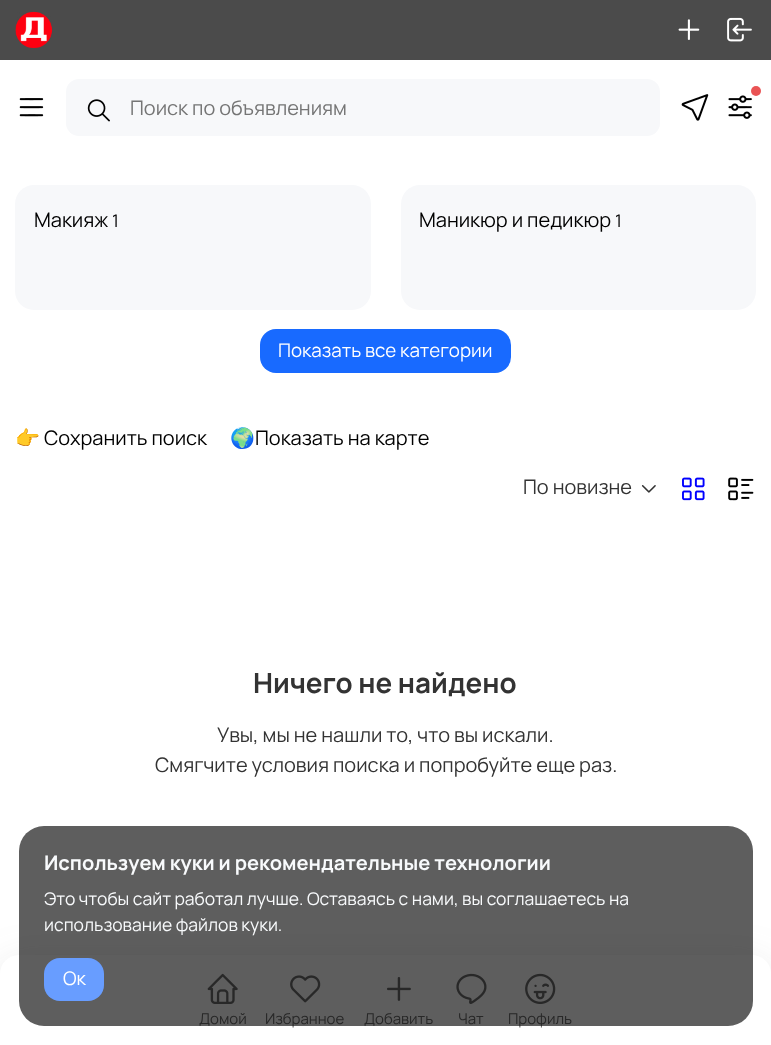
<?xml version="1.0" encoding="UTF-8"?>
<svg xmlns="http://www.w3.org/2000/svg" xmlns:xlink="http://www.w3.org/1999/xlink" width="771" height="1045">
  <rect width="100%" height="100%" fill="#ffffff" />
  <rect width="771" height="60" fill="#4b4b4b" />
  <image x="15" y="11" width="38" height="37" xlink:href="image1.png" />
  <image x="678" y="19" width="22" height="21" xlink:href="image2.png" />
  <image x="727" y="17" width="25" height="25" xlink:href="image3.png" />
  <image x="19" y="98" width="25" height="19" xlink:href="image4.png" />
  <rect x="66" y="79" width="594" height="57" rx="13" fill="#f7f8fa" />
  <image x="87" y="99" width="23" height="23" xlink:href="image5.png" />
  <image x="681" y="94" width="28" height="27" xlink:href="image6.png" />
  <image x="728" y="95" width="24" height="24" xlink:href="image7.png" />
  <circle cx="756" cy="91" r="5" fill="#ea5455" />
  <rect x="15" y="185" width="356" height="125" rx="19" fill="#f7f8fa" />
  <rect x="401" y="185" width="355" height="125" rx="19" fill="#f7f8fa" />
  <rect x="260" y="329" width="251" height="44" rx="16" fill="#186aff" />
  <image x="641" y="485" width="15" height="8" xlink:href="image8.png" />
  <image x="682" y="477" width="23" height="24" xlink:href="image9.png" />
  <image x="728" y="477" width="26" height="24" xlink:href="image10.png" />
  <rect y="963" width="771" height="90" rx="19" fill="#5e5c5c" fill-opacity="0.14" filter="blur(20px)" />
  <path d="M 19 955 h 733 c 10.5 0 19 8.5 19 19 v 71 h -771 v -71 c 0 -10.5 8.5 -19 19 -19 z" fill="#ffffff" />
  <image x="207" y="973" width="31" height="31" xlink:href="image11.png" />
  <image x="290" y="975" width="31" height="28" xlink:href="image12.png" />
  <image x="387" y="977" width="24" height="24" xlink:href="image13.png" />
  <image x="456" y="973" width="31" height="31" xlink:href="image14.png" />
  <image x="525" y="973" width="31" height="31" xlink:href="image15.png" />
  <text x="130" y="115" style="font-family: Manrope; font-size: 20px; fill: #757575">Поиск по объявлениям</text>
  <text x="34" y="227" style="font-family: Manrope; font-size: 20px; fill: #000000">Макияж</text>
  <text x="112" y="227" style="font-family: Manrope; font-size: 17.5px; fill: #000000">1</text>
  <text x="419" y="227" style="font-family: Manrope; font-size: 20px; fill: #000000">Маникюр и педикюр</text>
  <text x="615" y="227" style="font-family: Manrope; font-size: 17.5px; fill: #000000">1</text>
  <text x="278" y="357" style="font-family: Manrope; font-size: 18.75px; fill: #ffffff">Показать все категории</text>
  <text x="15" y="445" style="font-family: Noto Color Emoji; font-size: 20px; fill: #000000">👉</text>
  <text x="44" y="445" style="font-family: Manrope; font-size: 20px; fill: #000000">Сохранить поиск</text>
  <text x="230" y="445" style="font-family: Noto Color Emoji; font-size: 20px; fill: #000000">🌍</text>
  <text x="255" y="445" style="font-family: Manrope; font-size: 20px; fill: #000000">Показать на карте</text>
  <text x="523" y="494" style="font-family: Manrope; font-size: 20px; fill: #333333">По новизне</text>
  <text x="253" y="693" style="font-family: Manrope; font-size: 27.75px; font-weight: bold; fill: #333333">Ничего не найдено</text>
  <text x="217" y="742" style="font-family: Manrope; font-size: 20px; fill: #333333">Увы, мы не нашли то, что вы искали.</text>
  <text x="155" y="772" style="font-family: Manrope; font-size: 20px; fill: #333333">Смягчите условия поиска и попробуйте еще раз.</text>
  <text x="199" y="1024" style="font-family: Manrope; font-size: 15px; fill: #646464">Домой</text>
  <text x="265" y="1024" style="font-family: Manrope; font-size: 15px; fill: #646464">Избранное</text>
  <text x="364" y="1024" style="font-family: Manrope; font-size: 15px; fill: #646464">Добавить</text>
  <text x="458" y="1024" style="font-family: Manrope; font-size: 15px; fill: #646464">Чат</text>
  <text x="508" y="1024" style="font-family: Manrope; font-size: 15px; fill: #646464">Профиль</text>
  <rect x="19" y="826" width="734" height="200" rx="25" fill="#070707" fill-opacity="0.65" />
  <rect x="44" y="958" width="60" height="43" rx="16" fill="#689dff" />
  <text x="63" y="985" style="font-family: Manrope; font-size: 18.75px; fill: #ffffff">Ок</text>
  <text x="44" y="931" style="font-family: Manrope; font-size: 17.5px; fill: #f8fafc">использование файлов куки.</text>
  <text x="44" y="905" style="font-family: Manrope; font-size: 17.5px; fill: #f8fafc">Это чтобы сайт работал лучше. Оставаясь с нами, вы соглашаетесь на</text>
  <text x="44" y="870" style="font-family: Manrope; font-size: 20px; font-weight: bold; fill: #f8fafc">Используем куки и рекомендательные технологии</text>
</svg>
